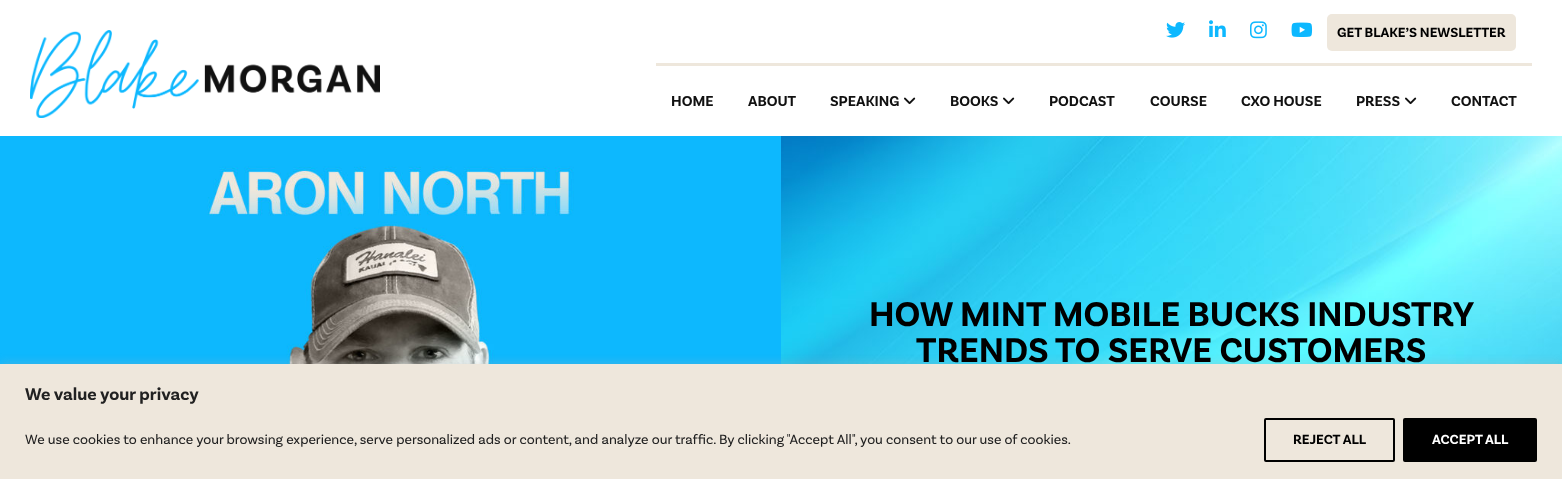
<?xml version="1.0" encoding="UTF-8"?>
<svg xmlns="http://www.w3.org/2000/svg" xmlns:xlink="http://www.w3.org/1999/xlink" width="1562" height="479">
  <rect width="100%" height="100%" fill="#ffffff" />
  <image x="30" y="30" width="350" height="88" xlink:href="image1.png" />
  <image x="1166" y="22" width="19" height="16" xlink:href="image2.png" />
  <image x="1209" y="20" width="17" height="17" xlink:href="image3.png" />
  <image x="1250" y="21" width="17" height="18" xlink:href="image4.png" />
  <image x="1291" y="22" width="22" height="15" xlink:href="image5.png" />
  <rect x="1327" y="14" width="189" height="37" rx="5" fill="#eee7dc" />
  <rect x="656" y="63" width="876" height="3" fill="#eee7dc" />
  <image x="904" y="97" width="12" height="8" xlink:href="image6.png" />
  <image x="1003" y="97" width="12" height="8" xlink:href="image6.png" />
  <image x="1405" y="97" width="12" height="8" xlink:href="image6.png" />
  <image x="781" y="136" width="781" height="228" xlink:href="image7.png" />
  <image x="0" y="136" width="781" height="228" xlink:href="image8.png" />
  <rect y="363" width="1562" height="115" fill="#acabab" fill-opacity="0.3" filter="blur(5px)" />
  <rect y="364" width="1562" height="115" fill="#eee7dc" />
  <rect x="1265" y="419" width="129" height="42" rx="1" fill="none" stroke="#000000" stroke-width="2" />
  <rect x="1404" y="419" width="132" height="42" rx="1" fill="#000000" stroke="#000000" stroke-width="2" />
  <text x="1337" y="37" style="font-family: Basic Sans; font-size: 14px; font-weight: bold; fill: #000000">GET BLAKE’S NEWSLETTER</text>
  <text x="671" y="106" style="font-family: Basic Sans; font-size: 15px; font-weight: bold; fill: #111111">HOME</text>
  <text x="748" y="106" style="font-family: Basic Sans; font-size: 15px; font-weight: bold; fill: #111111">ABOUT</text>
  <text x="830" y="106" style="font-family: Basic Sans; font-size: 15px; font-weight: bold; fill: #111111">SPEAKING</text>
  <text x="950" y="106" style="font-family: Basic Sans; font-size: 15px; font-weight: bold; fill: #111111">BOOKS</text>
  <text x="1049" y="106" style="font-family: Basic Sans; font-size: 15px; font-weight: bold; fill: #111111">PODCAST</text>
  <text x="1150" y="106" style="font-family: Basic Sans; font-size: 15px; font-weight: bold; fill: #111111">COURSE</text>
  <text x="1241" y="106" style="font-family: Basic Sans; font-size: 15px; font-weight: bold; fill: #111111">CXO HOUSE</text>
  <text x="1356" y="106" style="font-family: Basic Sans; font-size: 15px; font-weight: bold; fill: #111111">PRESS</text>
  <text x="1451" y="106" style="font-family: Basic Sans; font-size: 15px; font-weight: bold; fill: #111111">CONTACT</text>
  <text x="869" y="326" style="font-family: Basic Sans; font-size: 36px; font-weight: bold; fill: #000000">HOW MINT MOBILE BUCKS INDUSTRY</text>
  <text x="916" y="362" style="font-family: Basic Sans; font-size: 36px; font-weight: bold; fill: #000000">TRENDS TO SERVE CUSTOMERS</text>
  <text x="25" y="400" style="font-family: Basic Sans; font-size: 18px; font-weight: bold; fill: #212121">We value your privacy</text>
  <text x="25" y="444" style="font-family: Basic Sans; font-size: 14px; fill: #212121">We use cookies to enhance your browsing experience, serve personalized ads or content, and analyze our traffic. By clicking "Accept All", you consent to our use of cookies.</text>
  <text x="1293" y="444" style="font-family: Basic Sans; font-size: 14px; font-weight: bold; fill: #000000">REJECT ALL</text>
  <text x="1432" y="444" style="font-family: Basic Sans; font-size: 14px; font-weight: bold; fill: #ffffff">ACCEPT ALL</text>
</svg>
